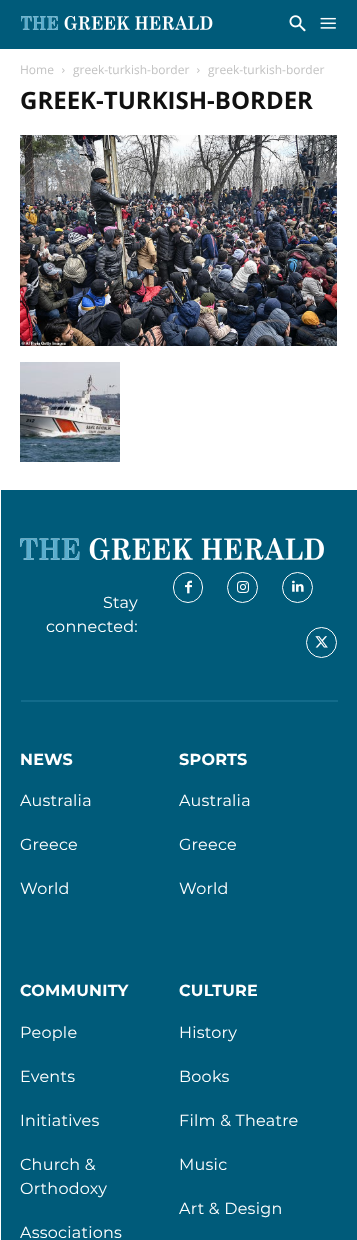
<?xml version="1.0" encoding="UTF-8"?>
<svg xmlns="http://www.w3.org/2000/svg" xmlns:xlink="http://www.w3.org/1999/xlink" width="357" height="1240">
  <rect width="100%" height="100%" fill="#ffffff" />
  <rect width="357" height="49" fill="#005b7a" />
  <image x="21" y="16" width="192" height="14" xlink:href="image1.png" />
  <image x="289" y="15" width="17" height="17" xlink:href="image2.png" />
  <image x="320" y="17" width="16" height="12" xlink:href="image3.png" />
  <image x="62" y="68" width="3" height="5" xlink:href="image4.png" />
  <image x="197" y="68" width="3" height="5" xlink:href="image4.png" />
  <image x="20" y="135" width="317" height="211" xlink:href="image5.png" />
  <image x="20" y="362" width="100" height="100" xlink:href="image6.png" />
  <rect x="1" y="490" width="356" height="750" fill="#005b7a" />
  <image x="20" y="538" width="304" height="22" xlink:href="image7.png" />
  <rect x="173.5" y="572.5" width="29" height="30" rx="14.5" fill="none" stroke="#ffffff" />
  <image x="185" y="580" width="7" height="14" xlink:href="image8.png" />
  <circle cx="242.5" cy="587.5" r="15" fill="none" stroke="#ffffff" />
  <image x="237" y="581" width="12" height="12" xlink:href="image9.png" />
  <circle cx="297.5" cy="587.5" r="15" fill="none" stroke="#ffffff" />
  <image x="292" y="580" width="12" height="12" xlink:href="image10.png" />
  <circle cx="321.5" cy="642.5" r="15" fill="none" stroke="#ffffff" />
  <image x="315" y="636" width="13" height="12" xlink:href="image11.png" />
  <rect x="21" y="700" width="317" height="2" fill="#126b8b" />
  <text x="20" y="74" style="font-family: Open Sans; font-size: 12px; fill: #c3c3c3">Home</text>
  <text x="73" y="74" style="font-family: Open Sans; font-size: 12px; fill: #c3c3c3">greek-turkish-border</text>
  <text x="208" y="74" style="font-family: Open Sans; font-size: 12px; fill: #c3c3c3">greek-turkish-border</text>
  <text x="20" y="109" style="font-family: Open Sans; font-size: 24px; font-weight: bold; fill: #111111">GREEK-TURKISH-BORDER</text>
  <text x="103" y="608" style="font-family: Montserrat; font-size: 16px; letter-spacing: 0.25px; fill: #ffffff">Stay</text>
  <text x="46" y="632" style="font-family: Montserrat; font-size: 16px; letter-spacing: 0.25px; fill: #ffffff">connected:</text>
  <text x="20" y="765" style="font-family: Montserrat; font-size: 16px; font-weight: bold; letter-spacing: 0.25px; fill: #ffffff">NEWS</text>
  <text x="20" y="806" style="font-family: Montserrat; font-size: 16px; letter-spacing: 0.25px; fill: #ffffff">Australia</text>
  <text x="20" y="850" style="font-family: Montserrat; font-size: 16px; letter-spacing: 0.25px; fill: #ffffff">Greece</text>
  <text x="20" y="894" style="font-family: Montserrat; font-size: 16px; letter-spacing: 0.25px; fill: #ffffff">World</text>
  <text x="179" y="765" style="font-family: Montserrat; font-size: 16px; font-weight: bold; letter-spacing: 0.25px; fill: #ffffff">SPORTS</text>
  <text x="179" y="806" style="font-family: Montserrat; font-size: 16px; letter-spacing: 0.25px; fill: #ffffff">Australia</text>
  <text x="179" y="850" style="font-family: Montserrat; font-size: 16px; letter-spacing: 0.25px; fill: #ffffff">Greece</text>
  <text x="179" y="894" style="font-family: Montserrat; font-size: 16px; letter-spacing: 0.25px; fill: #ffffff">World</text>
  <text x="20" y="996" style="font-family: Montserrat; font-size: 16px; font-weight: bold; letter-spacing: 0.25px; fill: #ffffff">COMMUNITY</text>
  <text x="20" y="1038" style="font-family: Montserrat; font-size: 16px; letter-spacing: 0.25px; fill: #ffffff">People</text>
  <text x="20" y="1082" style="font-family: Montserrat; font-size: 16px; letter-spacing: 0.25px; fill: #ffffff">Events</text>
  <text x="20" y="1126" style="font-family: Montserrat; font-size: 16px; letter-spacing: 0.25px; fill: #ffffff">Initiatives</text>
  <text x="20" y="1170" style="font-family: Montserrat; font-size: 16px; letter-spacing: 0.25px; fill: #ffffff">Church &amp;</text>
  <text x="20" y="1194" style="font-family: Montserrat; font-size: 16px; letter-spacing: 0.25px; fill: #ffffff">Orthodoxy</text>
  <text x="20" y="1238" style="font-family: Montserrat; font-size: 16px; letter-spacing: 0.25px; fill: #ffffff">Associations</text>
  <text x="179" y="996" style="font-family: Montserrat; font-size: 16px; font-weight: bold; letter-spacing: 0.25px; fill: #ffffff">CULTURE</text>
  <text x="179" y="1038" style="font-family: Montserrat; font-size: 16px; letter-spacing: 0.25px; fill: #ffffff">History</text>
  <text x="179" y="1082" style="font-family: Montserrat; font-size: 16px; letter-spacing: 0.25px; fill: #ffffff">Books</text>
  <text x="179" y="1126" style="font-family: Montserrat; font-size: 16px; letter-spacing: 0.25px; fill: #ffffff">Film &amp; Theatre</text>
  <text x="179" y="1170" style="font-family: Montserrat; font-size: 16px; letter-spacing: 0.25px; fill: #ffffff">Music</text>
  <text x="179" y="1214" style="font-family: Montserrat; font-size: 16px; letter-spacing: 0.25px; fill: #ffffff">Art &amp; Design</text>
</svg>
